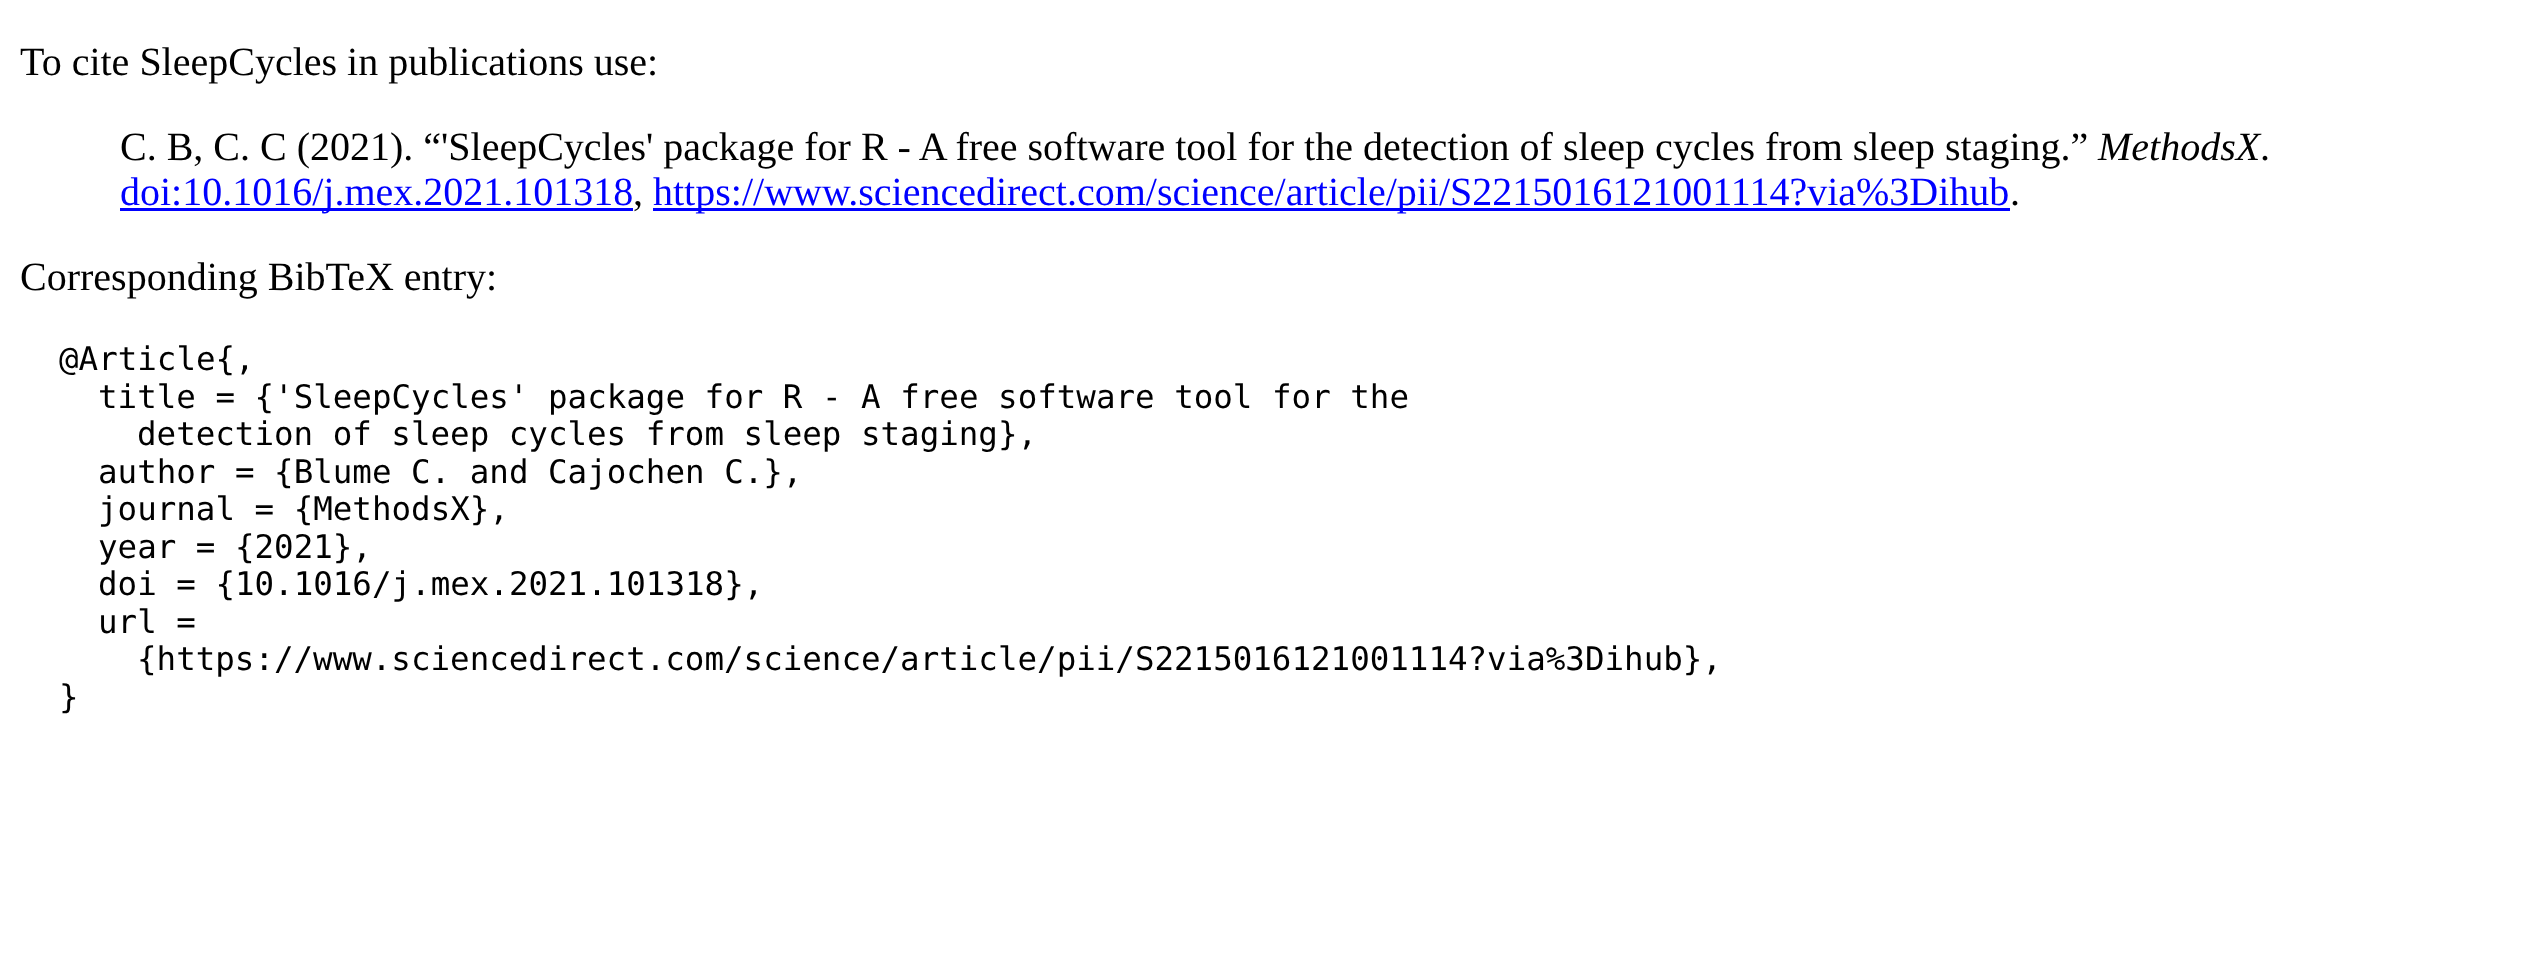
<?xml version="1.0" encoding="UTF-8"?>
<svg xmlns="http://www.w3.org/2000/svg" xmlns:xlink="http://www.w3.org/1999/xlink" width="2548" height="980">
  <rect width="100%" height="100%" fill="#ffffff" />
  <rect x="120" y="208" width="513" height="3" fill="#0000ff" />
  <rect x="653" y="208" width="1357" height="3" fill="#0000ff" />
  <text x="20" y="75" style="font-family: Liberation Serif; font-size: 40px; fill: #000000">To cite SleepCycles in publications use:</text>
  <text x="120" y="160" style="font-family: Liberation Serif; font-size: 40px; fill: #000000">C. B, C. C (2021). “'SleepCycles' package for R - A free software tool for the detection of sleep cycles from sleep staging.”</text>
  <text x="2098" y="160" style="font-family: Liberation Serif; font-size: 40px; font-style: italic; fill: #000000">MethodsX</text>
  <text x="2260" y="160" style="font-family: Liberation Serif; font-size: 40px; fill: #000000">.</text>
  <text x="120" y="205" style="font-family: Liberation Serif; font-size: 40px; fill: #0000ff">doi:10.1016/j.mex.2021.101318</text>
  <text x="633" y="205" style="font-family: Liberation Serif; font-size: 40px; fill: #000000">,</text>
  <text x="653" y="205" style="font-family: Liberation Serif; font-size: 40px; fill: #0000ff">https://www.sciencedirect.com/science/article/pii/S2215016121001114?via%3Dihub</text>
  <text x="2010" y="205" style="font-family: Liberation Serif; font-size: 40px; fill: #000000">.</text>
  <text x="20" y="290" style="font-family: Liberation Serif; font-size: 40px; fill: #000000">Corresponding BibTeX entry:</text>
  <text x="59" y="370" style="font-family: DejaVu Sans Mono; font-size: 32.5px; fill: #000000">@Article{,</text>
  <text x="98" y="408" style="font-family: DejaVu Sans Mono; font-size: 32.5px; fill: #000000">title = {'SleepCycles' package for R - A free software tool for the</text>
  <text x="137" y="445" style="font-family: DejaVu Sans Mono; font-size: 32.5px; fill: #000000">detection of sleep cycles from sleep staging},</text>
  <text x="98" y="483" style="font-family: DejaVu Sans Mono; font-size: 32.5px; fill: #000000">author = {Blume C. and Cajochen C.},</text>
  <text x="98" y="520" style="font-family: DejaVu Sans Mono; font-size: 32.5px; fill: #000000">journal = {MethodsX},</text>
  <text x="98" y="558" style="font-family: DejaVu Sans Mono; font-size: 32.5px; fill: #000000">year = {2021},</text>
  <text x="98" y="595" style="font-family: DejaVu Sans Mono; font-size: 32.5px; fill: #000000">doi = {10.1016/j.mex.2021.101318},</text>
  <text x="98" y="633" style="font-family: DejaVu Sans Mono; font-size: 32.5px; fill: #000000">url =</text>
  <text x="137" y="670" style="font-family: DejaVu Sans Mono; font-size: 32.5px; fill: #000000">{https://www.sciencedirect.com/science/article/pii/S2215016121001114?via%3Dihub},</text>
  <text x="59" y="708" style="font-family: DejaVu Sans Mono; font-size: 32.5px; fill: #000000">}</text>
</svg>
